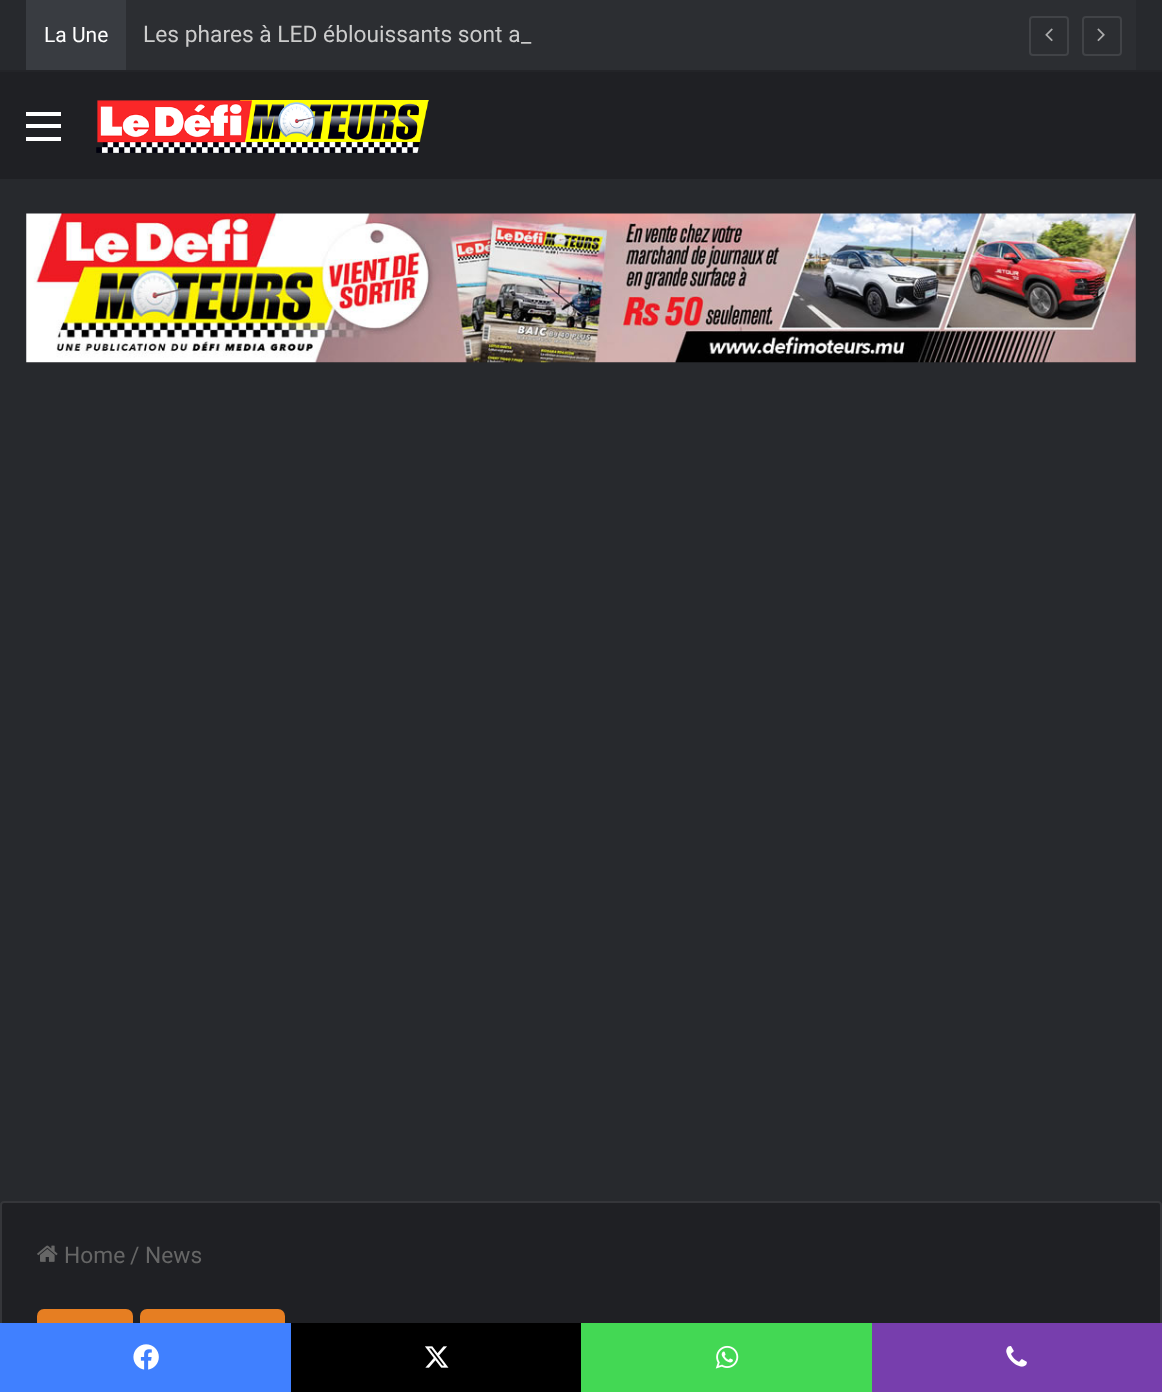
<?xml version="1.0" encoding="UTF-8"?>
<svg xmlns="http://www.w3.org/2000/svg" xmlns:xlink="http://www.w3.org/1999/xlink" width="1162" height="1392">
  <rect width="100%" height="100%" fill="#27292d" />
  <rect y="70" width="1162" height="2" fill="#232428" />
  <rect x="126" width="1010" height="70" fill="#2c2e32" />
  <rect x="26" width="100" height="70" fill="#393c41" />
  <rect x="1030" y="17" width="38" height="38" rx="3" fill="none" stroke="#414347" stroke-width="2" />
  <image x="1045" y="28" width="8" height="14" xlink:href="image1.png" />
  <rect x="1083" y="17" width="38" height="38" rx="3" fill="none" stroke="#414347" stroke-width="2" />
  <image x="1097" y="28" width="8" height="14" xlink:href="image2.png" />
  <rect y="72" width="1162" height="107" fill="#1f2024" />
  <rect x="26" y="124" width="35" height="4" fill="#ffffff" />
  <rect x="26" y="112" width="35" height="4" fill="#ffffff" />
  <rect x="26" y="137" width="35" height="4" fill="#ffffff" />
  <image x="96" y="100" width="333" height="53" xlink:href="image3.png" />
  <image x="26" y="213" width="1110" height="150" xlink:href="image4.png" />
  <rect y="1201" width="1162" height="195" rx="4" fill="#1f2024" />
  <rect x="1" y="1202" width="1160" height="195" rx="3" fill="none" stroke="#ffffff" stroke-opacity="0.1" stroke-width="2" />
  <image x="37" y="1245" width="21" height="17" xlink:href="image5.png" />
  <rect x="37" y="1309" width="96" height="46" rx="7" fill="#e67e22" />
  <rect x="140" y="1309" width="145" height="46" rx="7" fill="#e67e22" />
  <rect y="1323" width="291" height="69" fill="#4080ff" />
  <image x="133" y="1344" width="26" height="26" xlink:href="image6.png" />
  <rect x="291" y="1323" width="290" height="69" fill="#000000" />
  <image x="425" y="1346" width="24" height="22" xlink:href="image7.png" />
  <rect x="581" y="1323" width="291" height="69" fill="#43d854" />
  <image x="715" y="1345" width="24" height="24" xlink:href="image8.png" />
  <rect x="872" y="1323" width="290" height="69" fill="#773ead" />
  <image x="1006" y="1346" width="21" height="21" xlink:href="image9.png" />
  <text x="44" y="42" style="font-family: Roboto; font-size: 21px; fill: #ffffff">La Une</text>
  <text x="143" y="42" style="font-family: Roboto; font-size: 22.75px; fill: #cccccc">Les phares à LED éblouissants sont a</text>
  <text x="521" y="42" style="font-family: Roboto; font-size: 22.75px; fill: #cccccc">_</text>
  <text x="64" y="1263" style="font-family: Roboto; font-size: 22.75px; fill: #666666">Home</text>
  <text x="130" y="1263" style="font-family: Roboto; font-size: 22.75px; fill: #666666">/</text>
  <text x="145" y="1263" style="font-family: Roboto; font-size: 22.75px; fill: #666666">News</text>
</svg>
